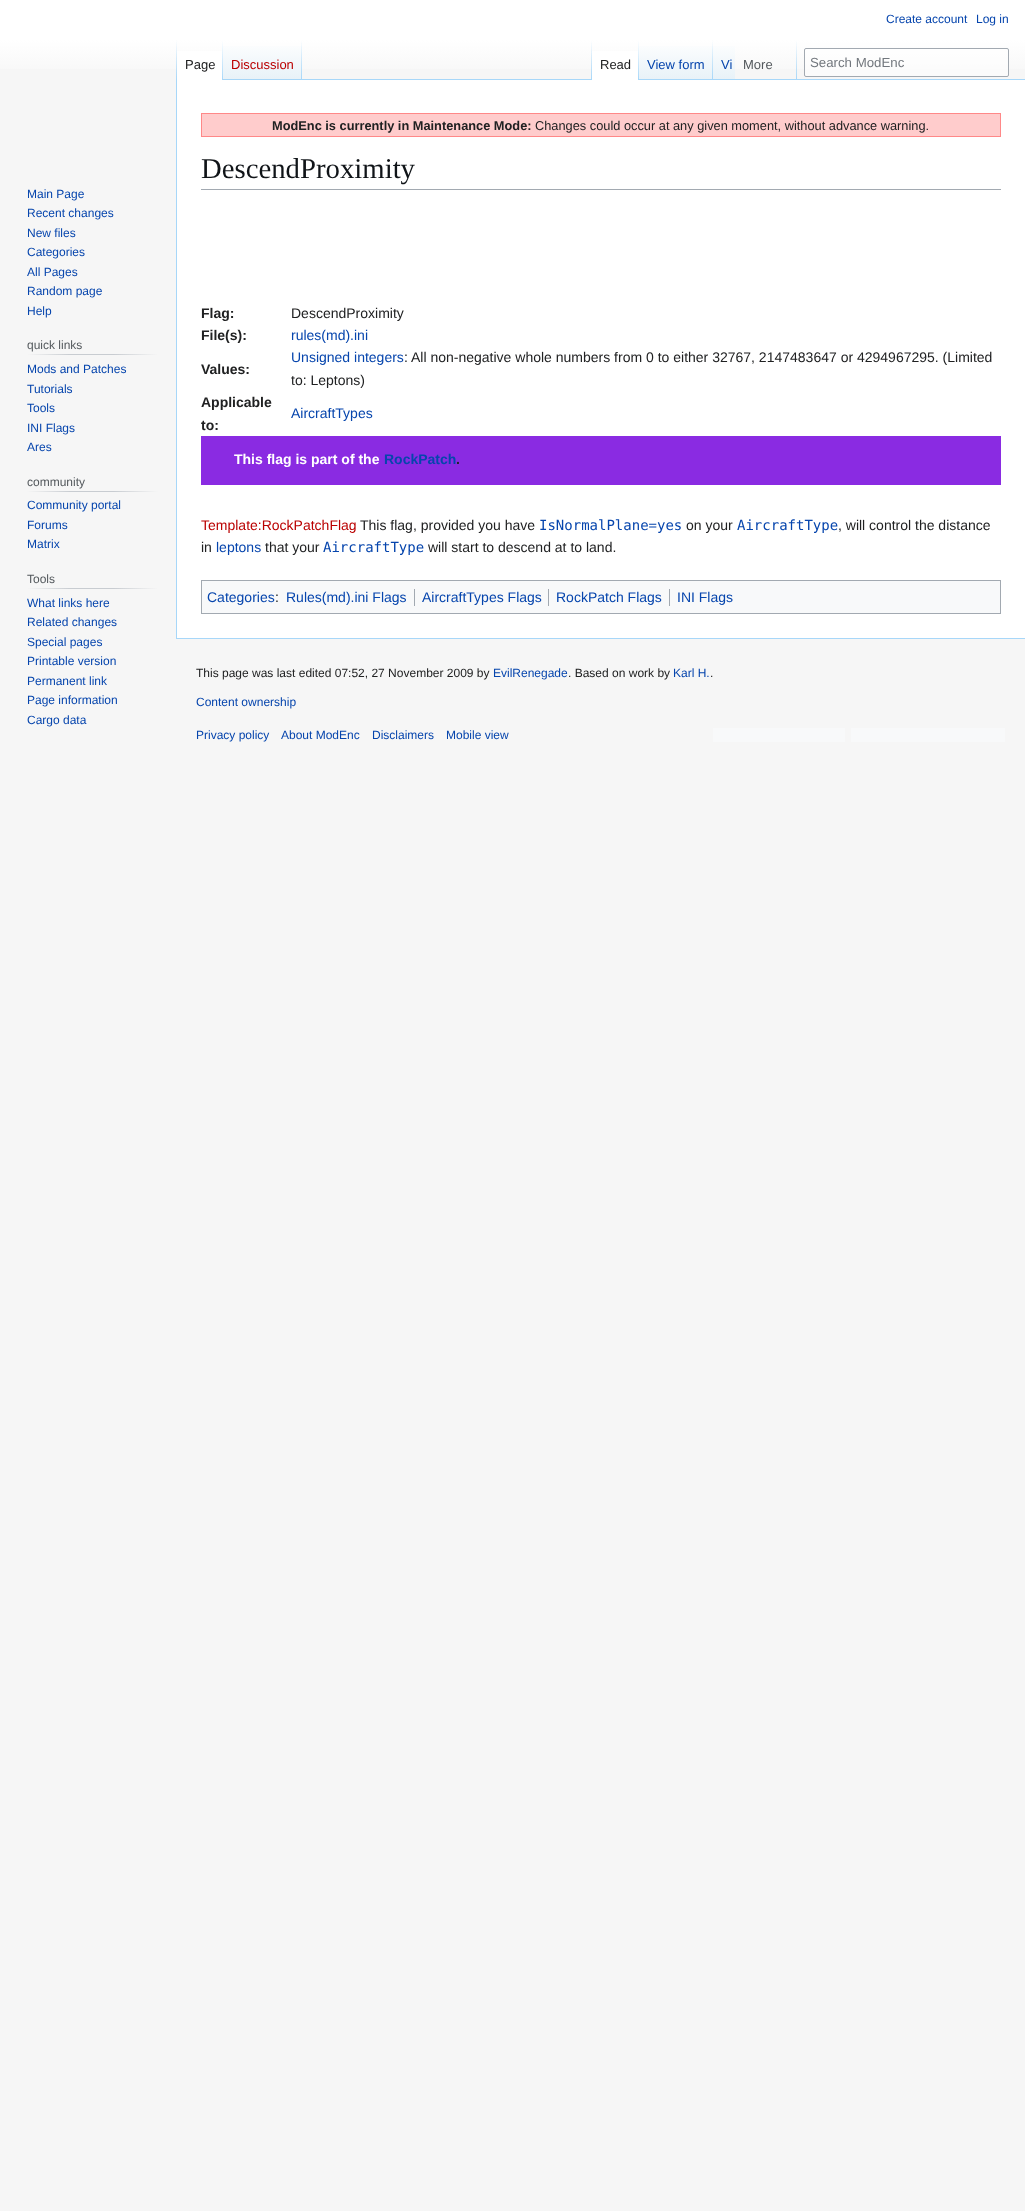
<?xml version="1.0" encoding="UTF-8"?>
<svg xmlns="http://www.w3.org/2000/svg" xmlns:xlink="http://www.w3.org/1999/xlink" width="1025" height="2211">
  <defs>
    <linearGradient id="g1" gradientUnits="userSpaceOnUse" x1="513" y1="0" x2="513" y2="80"><stop offset="0.5" stop-color="#ffffff" /><stop offset="1" stop-color="#f6f6f6" /></linearGradient>
    <linearGradient id="g2" gradientUnits="userSpaceOnUse" x1="177" y1="40" x2="177" y2="80"><stop offset="0" stop-color="#a7d7f9" stop-opacity="0" /><stop offset="1" stop-color="#a7d7f9" /></linearGradient>
    <linearGradient id="g3" gradientUnits="userSpaceOnUse" x1="223" y1="40" x2="223" y2="80"><stop offset="0" stop-color="#ffffff" /><stop offset="1" stop-color="#a7d7f9" /></linearGradient>
    <linearGradient id="g4" gradientUnits="userSpaceOnUse" x1="263" y1="80" x2="263" y2="40"><stop offset="0" stop-color="#77c1f6" /><stop offset="0.03" stop-color="#e8f2f8" /><stop offset="1" stop-color="#ffffff" /></linearGradient>
    <linearGradient id="g5" gradientUnits="userSpaceOnUse" x1="302" y1="40" x2="302" y2="80"><stop offset="0" stop-color="#a7d7f9" stop-opacity="0" /><stop offset="1" stop-color="#a7d7f9" /></linearGradient>
    <linearGradient id="g6" gradientUnits="userSpaceOnUse" x1="592" y1="40" x2="592" y2="80"><stop offset="0" stop-color="#a7d7f9" stop-opacity="0" /><stop offset="1" stop-color="#a7d7f9" /></linearGradient>
    <linearGradient id="g7" gradientUnits="userSpaceOnUse" x1="639" y1="40" x2="639" y2="80"><stop offset="0" stop-color="#ffffff" /><stop offset="1" stop-color="#a7d7f9" /></linearGradient>
    <linearGradient id="g8" gradientUnits="userSpaceOnUse" x1="676" y1="80" x2="676" y2="40"><stop offset="0" stop-color="#77c1f6" /><stop offset="0.03" stop-color="#e8f2f8" /><stop offset="1" stop-color="#ffffff" /></linearGradient>
    <linearGradient id="g9" gradientUnits="userSpaceOnUse" x1="713" y1="40" x2="713" y2="80"><stop offset="0" stop-color="#a7d7f9" stop-opacity="0" /><stop offset="1" stop-color="#a7d7f9" /></linearGradient>
    <linearGradient id="g10" gradientUnits="userSpaceOnUse" x1="724" y1="80" x2="724" y2="40"><stop offset="0" stop-color="#77c1f6" /><stop offset="0.03" stop-color="#e8f2f8" /><stop offset="1" stop-color="#ffffff" /></linearGradient>
    <linearGradient id="g11" gradientUnits="userSpaceOnUse" x1="797" y1="40" x2="797" y2="80"><stop offset="0" stop-color="#a7d7f9" stop-opacity="0" /><stop offset="1" stop-color="#a7d7f9" /></linearGradient>
    <linearGradient id="g12" gradientUnits="userSpaceOnUse" x1="27" y1="355" x2="158" y2="355"><stop offset="0" stop-color="#f6f6f6" /><stop offset="0.33" stop-color="#c8ccd1" /><stop offset="0.66" stop-color="#c8ccd1" /><stop offset="1" stop-color="#f6f6f6" /></linearGradient>
    <linearGradient id="g13" gradientUnits="userSpaceOnUse" x1="27" y1="492" x2="158" y2="492"><stop offset="0" stop-color="#f6f6f6" /><stop offset="0.33" stop-color="#c8ccd1" /><stop offset="0.66" stop-color="#c8ccd1" /><stop offset="1" stop-color="#f6f6f6" /></linearGradient>
    <linearGradient id="g14" gradientUnits="userSpaceOnUse" x1="27" y1="589" x2="158" y2="589"><stop offset="0" stop-color="#f6f6f6" /><stop offset="0.33" stop-color="#c8ccd1" /><stop offset="0.66" stop-color="#c8ccd1" /><stop offset="1" stop-color="#f6f6f6" /></linearGradient>
  </defs>
  <rect width="100%" height="100%" fill="#f6f6f6" />
  <rect width="1025" height="69" fill="url(#g1)" />
  <rect x="176" y="638" width="849" height="1" fill="#a7d7f9" />
  <rect x="176" y="79" width="1" height="560" fill="#a7d7f9" />
  <rect x="176" y="40" width="1" height="40" fill="url(#g2)" />
  <rect x="177" y="51" width="45" height="29" fill="#ffffff" />
  <rect x="222" y="40" width="1" height="40" fill="url(#g3)" />
  <rect x="223" y="46" width="79" height="34" fill="url(#g4)" />
  <rect x="301" y="40" width="1" height="40" fill="url(#g5)" />
  <rect x="302" y="79" width="723" height="1" fill="#a7d7f9" />
  <rect x="591" y="40" width="1" height="40" fill="url(#g6)" />
  <rect x="592" y="51" width="46" height="29" fill="#ffffff" />
  <rect x="638" y="40" width="1" height="40" fill="url(#g7)" />
  <rect x="639" y="46" width="74" height="33" fill="url(#g8)" />
  <rect x="712" y="40" width="1" height="40" fill="url(#g9)" />
  <rect x="713" y="46" width="22" height="33" fill="url(#g10)" />
  <rect x="796" y="40" width="1" height="40" fill="url(#g11)" />
  <rect x="804.5" y="48.5" width="204" height="28" rx="1.5" fill="#ffffff" fill-opacity="0.5" stroke="#a2a9b1" />
  <rect x="27" y="354" width="131" height="1" fill="url(#g12)" />
  <rect x="27" y="491" width="131" height="1" fill="url(#g13)" />
  <rect x="27" y="588" width="131" height="1" fill="url(#g14)" />
  <rect x="177" y="80" width="848" height="558" fill="#ffffff" />
  <rect x="201.5" y="113.5" width="799" height="23" fill="#ffcccc" stroke="#ff8888" />
  <rect x="201" y="189" width="800" height="1" fill="#a2a9b1" />
  <rect x="201" y="436" width="800" height="49" fill="#8a2be2" />
  <rect x="201.5" y="580.5" width="799" height="33" fill="#f8f9fa" stroke="#a2a9b1" />
  <rect x="414" y="589" width="1" height="17" fill="#a2a9b1" />
  <rect x="548" y="589" width="1" height="17" fill="#a2a9b1" />
  <rect x="669" y="589" width="1" height="17" fill="#a2a9b1" />
  <rect x="713" y="728" width="132" height="14" fill="#f8f9fa" />
  <rect x="851" y="728" width="154" height="14" fill="#f8f9fa" />
  <text x="886" y="23" style="font-family: Liberation Sans; font-size: 12px; fill: #0645ad">Create account</text>
  <text x="976" y="23" style="font-family: Liberation Sans; font-size: 12px; fill: #0645ad">Log in</text>
  <text x="185" y="69" style="font-family: Liberation Sans; font-size: 13px; fill: #202122">Page</text>
  <text x="231" y="69" style="font-family: Liberation Sans; font-size: 13px; fill: #ba0000">Discussion</text>
  <text x="600" y="69" style="font-family: Liberation Sans; font-size: 13px; fill: #202122">Read</text>
  <text x="647" y="69" style="font-family: Liberation Sans; font-size: 13px; fill: #0645ad">View form</text>
  <text x="721" y="69" style="font-family: Liberation Sans; font-size: 13px; fill: #0645ad">Vi</text>
  <text x="743" y="69" style="font-family: Liberation Sans; font-size: 13px; fill: #54595d">More</text>
  <text x="810" y="67" style="font-family: Liberation Sans; font-size: 13.25px; fill: #72777d">Search ModEnc</text>
  <text x="27" y="198" style="font-family: Liberation Sans; font-size: 12px; fill: #0645ad">Main Page</text>
  <text x="27" y="217" style="font-family: Liberation Sans; font-size: 12px; fill: #0645ad">Recent changes</text>
  <text x="27" y="237" style="font-family: Liberation Sans; font-size: 12px; fill: #0645ad">New files</text>
  <text x="27" y="256" style="font-family: Liberation Sans; font-size: 12px; fill: #0645ad">Categories</text>
  <text x="27" y="276" style="font-family: Liberation Sans; font-size: 12px; fill: #0645ad">All Pages</text>
  <text x="27" y="295" style="font-family: Liberation Sans; font-size: 12px; fill: #0645ad">Random page</text>
  <text x="27" y="315" style="font-family: Liberation Sans; font-size: 12px; fill: #0645ad">Help</text>
  <text x="27" y="349" style="font-family: Liberation Sans; font-size: 12px; fill: #54595d">quick links</text>
  <text x="27" y="373" style="font-family: Liberation Sans; font-size: 12px; fill: #0645ad">Mods and Patches</text>
  <text x="27" y="393" style="font-family: Liberation Sans; font-size: 12px; fill: #0645ad">Tutorials</text>
  <text x="27" y="412" style="font-family: Liberation Sans; font-size: 12px; fill: #0645ad">Tools</text>
  <text x="27" y="432" style="font-family: Liberation Sans; font-size: 12px; fill: #0645ad">INI Flags</text>
  <text x="27" y="451" style="font-family: Liberation Sans; font-size: 12px; fill: #0645ad">Ares</text>
  <text x="27" y="486" style="font-family: Liberation Sans; font-size: 12px; fill: #54595d">community</text>
  <text x="27" y="509" style="font-family: Liberation Sans; font-size: 12px; fill: #0645ad">Community portal</text>
  <text x="27" y="529" style="font-family: Liberation Sans; font-size: 12px; fill: #0645ad">Forums</text>
  <text x="27" y="548" style="font-family: Liberation Sans; font-size: 12px; fill: #0645ad">Matrix</text>
  <text x="27" y="583" style="font-family: Liberation Sans; font-size: 12px; fill: #54595d">Tools</text>
  <text x="27" y="607" style="font-family: Liberation Sans; font-size: 12px; fill: #0645ad">What links here</text>
  <text x="27" y="626" style="font-family: Liberation Sans; font-size: 12px; fill: #0645ad">Related changes</text>
  <text x="27" y="646" style="font-family: Liberation Sans; font-size: 12px; fill: #0645ad">Special pages</text>
  <text x="27" y="665" style="font-family: Liberation Sans; font-size: 12px; fill: #0645ad">Printable version</text>
  <text x="27" y="685" style="font-family: Liberation Sans; font-size: 12px; fill: #0645ad">Permanent link</text>
  <text x="27" y="704" style="font-family: Liberation Sans; font-size: 12px; fill: #0645ad">Page information</text>
  <text x="27" y="724" style="font-family: Liberation Sans; font-size: 12px; fill: #0645ad">Cargo data</text>
  <text x="272" y="130" style="font-family: Liberation Sans; font-size: 12.8px; font-weight: bold; fill: #202122">ModEnc is currently in Maintenance Mode:</text>
  <text x="535" y="130" style="font-family: Liberation Sans; font-size: 12.8px; fill: #202122">Changes could occur at any given moment, without advance warning.</text>
  <text x="201" y="178" style="font-family: Liberation Serif; font-size: 28.75px; fill: #101418">DescendProximity</text>
  <text x="201" y="318" style="font-family: Liberation Sans; font-size: 14px; font-weight: bold; fill: #202122">Flag:</text>
  <text x="291" y="318" style="font-family: Liberation Sans; font-size: 14px; fill: #202122">DescendProximity</text>
  <text x="201" y="340" style="font-family: Liberation Sans; font-size: 14px; font-weight: bold; fill: #202122">File(s):</text>
  <text x="291" y="340" style="font-family: Liberation Sans; font-size: 14px; fill: #0645ad">rules(md).ini</text>
  <text x="201" y="374" style="font-family: Liberation Sans; font-size: 14px; font-weight: bold; fill: #202122">Values:</text>
  <text x="291" y="362" style="font-family: Liberation Sans; font-size: 14px; fill: #0645ad">Unsigned integers</text>
  <text x="404" y="362" style="font-family: Liberation Sans; font-size: 14px; fill: #202122">: All non-negative whole numbers from 0 to either 32767, 2147483647 or 4294967295. (Limited</text>
  <text x="291" y="385" style="font-family: Liberation Sans; font-size: 14px; fill: #202122">to: Leptons)</text>
  <text x="201" y="407" style="font-family: Liberation Sans; font-size: 14px; font-weight: bold; fill: #202122">Applicable</text>
  <text x="201" y="430" style="font-family: Liberation Sans; font-size: 14px; font-weight: bold; fill: #202122">to:</text>
  <text x="291" y="418" style="font-family: Liberation Sans; font-size: 14px; fill: #0645ad">AircraftTypes</text>
  <text x="234" y="464" style="font-family: Liberation Sans; font-size: 14px; font-weight: bold; fill: #ffffff">This flag is part of the</text>
  <text x="384" y="464" style="font-family: Liberation Sans; font-size: 14px; font-weight: bold; fill: #0645ad">RockPatch</text>
  <text x="456" y="464" style="font-family: Liberation Sans; font-size: 14px; font-weight: bold; fill: #202122">.</text>
  <text x="201" y="530" style="font-family: Liberation Sans; font-size: 14px; fill: #ba0000">Template:RockPatchFlag</text>
  <text x="360" y="530" style="font-family: Liberation Sans; font-size: 14px; fill: #202122">This flag, provided you have</text>
  <text x="539" y="530" style="font-family: DejaVu Sans Mono; font-size: 14px; fill: #0645ad">IsNormalPlane=yes</text>
  <text x="686" y="530" style="font-family: Liberation Sans; font-size: 14px; fill: #202122">on your</text>
  <text x="737" y="530" style="font-family: DejaVu Sans Mono; font-size: 14px; fill: #0645ad">AircraftType</text>
  <text x="838" y="530" style="font-family: Liberation Sans; font-size: 14px; fill: #202122">, will control the distance</text>
  <text x="201" y="552" style="font-family: Liberation Sans; font-size: 14px; fill: #202122">in</text>
  <text x="216" y="552" style="font-family: Liberation Sans; font-size: 14px; fill: #0645ad">leptons</text>
  <text x="265" y="552" style="font-family: Liberation Sans; font-size: 14px; fill: #202122">that your</text>
  <text x="323" y="552" style="font-family: DejaVu Sans Mono; font-size: 14px; fill: #0645ad">AircraftType</text>
  <text x="428" y="552" style="font-family: Liberation Sans; font-size: 14px; fill: #202122">will start to descend at to land.</text>
  <text x="207" y="602" style="font-family: Liberation Sans; font-size: 14px; fill: #0645ad">Categories</text>
  <text x="275" y="602" style="font-family: Liberation Sans; font-size: 14px; fill: #202122">:</text>
  <text x="286" y="602" style="font-family: Liberation Sans; font-size: 14px; fill: #0645ad">Rules(md).ini Flags</text>
  <text x="422" y="602" style="font-family: Liberation Sans; font-size: 14px; fill: #0645ad">AircraftTypes Flags</text>
  <text x="556" y="602" style="font-family: Liberation Sans; font-size: 14px; fill: #0645ad">RockPatch Flags</text>
  <text x="677" y="602" style="font-family: Liberation Sans; font-size: 14px; fill: #0645ad">INI Flags</text>
  <text x="196" y="677" style="font-family: Liberation Sans; font-size: 12px; fill: #202122">This page was last edited 07:52, 27 November 2009 by</text>
  <text x="493" y="677" style="font-family: Liberation Sans; font-size: 12px; fill: #0645ad">EvilRenegade</text>
  <text x="568" y="677" style="font-family: Liberation Sans; font-size: 12px; fill: #202122">. Based on work by</text>
  <text x="673" y="677" style="font-family: Liberation Sans; font-size: 12px; fill: #0645ad">Karl H.</text>
  <text x="710" y="677" style="font-family: Liberation Sans; font-size: 12px; fill: #202122">.</text>
  <text x="196" y="706" style="font-family: Liberation Sans; font-size: 12px; fill: #0645ad">Content ownership</text>
  <text x="196" y="739" style="font-family: Liberation Sans; font-size: 12px; fill: #0645ad">Privacy policy</text>
  <text x="281" y="739" style="font-family: Liberation Sans; font-size: 12px; fill: #0645ad">About ModEnc</text>
  <text x="372" y="739" style="font-family: Liberation Sans; font-size: 12px; fill: #0645ad">Disclaimers</text>
  <text x="446" y="739" style="font-family: Liberation Sans; font-size: 12px; fill: #0645ad">Mobile view</text>
</svg>
